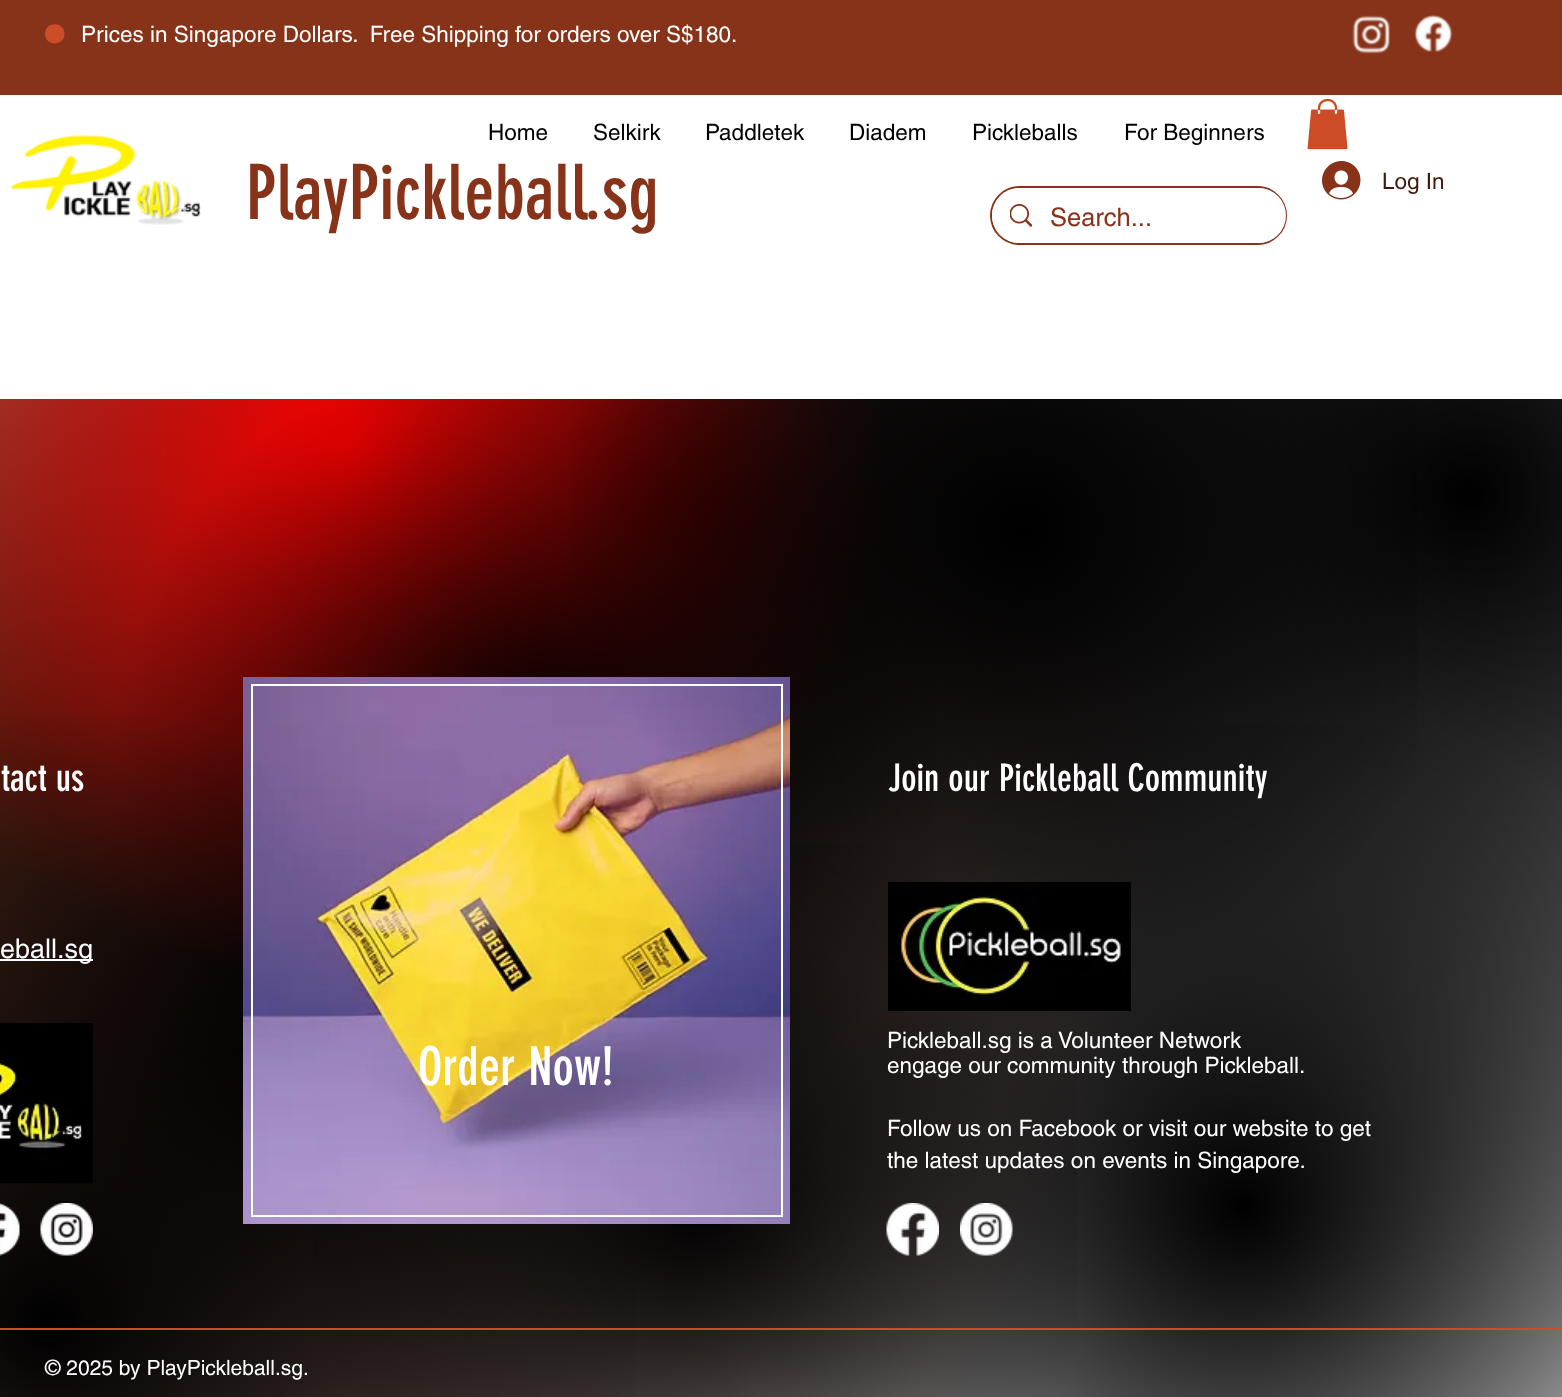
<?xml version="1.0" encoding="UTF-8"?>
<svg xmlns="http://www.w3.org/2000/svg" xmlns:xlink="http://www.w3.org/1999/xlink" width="1562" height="1397">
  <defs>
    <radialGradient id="g1" gradientUnits="userSpaceOnUse" cx="1468" cy="494" r="1724"><stop offset="0" stop-color="#000000" /><stop offset="0.7" stop-color="#ffffff" /></radialGradient>
    <radialGradient id="g2" gradientUnits="userSpaceOnUse" cx="29" cy="740" r="1669"><stop offset="0" stop-color="#cb4c25" /><stop offset="0.7" stop-color="#cb4c25" stop-opacity="0" /></radialGradient>
    <radialGradient id="g3" gradientUnits="userSpaceOnUse" cx="299" cy="1045" r="1420"><stop offset="0" stop-color="#000000" stop-opacity="0.99" /><stop offset="0.5" stop-color="#000000" stop-opacity="0" /></radialGradient>
    <radialGradient id="g4" gradientUnits="userSpaceOnUse" cx="665" cy="493" r="1275"><stop offset="0" stop-color="#000000" /><stop offset="1" stop-color="#000000" stop-opacity="0" /></radialGradient>
    <radialGradient id="g5" gradientUnits="userSpaceOnUse" cx="352" cy="446" r="1541"><stop offset="0" stop-color="#fb0000" /><stop offset="0.35" stop-color="#fb0000" stop-opacity="0" /></radialGradient>
    <radialGradient id="g6" gradientUnits="userSpaceOnUse" cx="536" cy="758" r="1210"><stop offset="0" stop-color="#000000" /><stop offset="0.35" stop-color="#000000" stop-opacity="0" /></radialGradient>
    <radialGradient id="g7" gradientUnits="userSpaceOnUse" cx="1242" cy="1206" r="1482"><stop offset="0" stop-color="#000000" /><stop offset="0.35" stop-color="#000000" stop-opacity="0" /></radialGradient>
    <radialGradient id="g8" gradientUnits="userSpaceOnUse" cx="697" cy="1198" r="1178"><stop offset="0" stop-color="#000000" /><stop offset="0.35" stop-color="#000000" stop-opacity="0" /></radialGradient>
    <radialGradient id="g9" gradientUnits="userSpaceOnUse" cx="1024" cy="530" r="1343"><stop offset="0" stop-color="#000000" /><stop offset="0.35" stop-color="#000000" stop-opacity="0" /></radialGradient>
    <radialGradient id="g10" gradientUnits="userSpaceOnUse" cx="47" cy="1323" r="1775"><stop offset="0" stop-color="#000000" /><stop offset="0.35" stop-color="#000000" stop-opacity="0" /></radialGradient>
  </defs>
  <rect width="100%" height="100%" fill="#ffffff" />
  <rect width="1562" height="95" fill="#873319" />
  <path d="M 64.5 34 c 0 12.5 -19.5 12.5 -19.5 0 c 0 -13 19.5 -13 19.5 0 z" fill="#cb4c25" />
  <image x="1352" y="15" width="38" height="39" xlink:href="image1.png" />
  <image x="1414" y="14" width="39" height="38" xlink:href="image2.png" />
  <image x="10" y="134" width="191" height="91" xlink:href="image3.png" />
  <image x="1307" y="99" width="41" height="51" xlink:href="image4.png" />
  <image x="1322" y="161" width="39" height="39" xlink:href="image5.png" />
  <rect x="991" y="187" width="295" height="57" rx="28.5" fill="none" stroke="#873319" stroke-width="2" />
  <rect x="992" y="188" width="294" height="55" rx="27.5" fill="#ffffff" />
  <image x="1010" y="204" width="22" height="23" xlink:href="image6.png" />
  <rect x="273" y="399" width="1289" height="998" fill="url(#g1)" />
  <rect y="399" width="1175" height="998" fill="url(#g2)" />
  <rect y="399" width="994" height="998" fill="url(#g3)" />
  <rect y="399" width="1562" height="998" fill="url(#g4)" />
  <rect y="399" width="879" height="561" fill="url(#g5)" />
  <rect x="121" y="399" width="814" height="687" fill="url(#g6)" />
  <rect x="737" y="725" width="825" height="672" fill="url(#g7)" />
  <rect x="314" y="843" width="763" height="554" fill="url(#g8)" />
  <rect x="569" y="399" width="848" height="571" fill="url(#g9)" />
  <rect y="716" width="636" height="681" fill="url(#g10)" />
  <rect y="959" width="93" height="2" fill="#ffffff" />
  <image x="888" y="882" width="243" height="129" xlink:href="image7.png" />
  <image x="0" y="1023" width="93" height="161" xlink:href="image8.png" />
  <image x="243" y="677" width="548" height="547" xlink:href="image9.png" />
  <rect x="252" y="685" width="530" height="531" fill="none" stroke="#ffffff" stroke-width="2" />
  <image x="0" y="1203" width="20" height="53" xlink:href="image10.png" />
  <image x="40" y="1203" width="53" height="53" xlink:href="image11.png" />
  <image x="886" y="1203" width="53" height="53" xlink:href="image12.png" />
  <image x="960" y="1203" width="53" height="53" xlink:href="image13.png" />
  <rect y="1328" width="1562" height="2" fill="#cb4c25" />
  <text x="81" y="42" style="font-family: helvetica; font-size: 22.5px; fill: #ffffff" xml:space="preserve">Prices in Singapore Dollars.  Free Shipping for orders over S$180.</text>
  <text x="246" y="219" style="font-family: 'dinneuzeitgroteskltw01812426'; font-size: 75px; fill: #873319">PlayPickleball.sg</text>
  <text x="488" y="140" style="font-family: helvetica; font-size: 22.5px; fill: #000000">Home</text>
  <text x="593" y="140" style="font-family: helvetica; font-size: 22.5px; fill: #000000">Selkirk</text>
  <text x="705" y="140" style="font-family: helvetica; font-size: 22.5px; fill: #000000">Paddletek</text>
  <text x="849" y="140" style="font-family: helvetica; font-size: 22.5px; fill: #000000">Diadem</text>
  <text x="972" y="140" style="font-family: helvetica; font-size: 22.5px; fill: #000000">Pickleballs</text>
  <text x="1124" y="140" style="font-family: helvetica; font-size: 22.5px; fill: #000000">For Beginners</text>
  <text x="1382" y="189" style="font-family: helvetica; font-size: 22.5px; fill: #44190c">Log In</text>
  <text x="1050" y="226" style="font-family: helvetica; font-size: 25.5px; fill: #873319">Search...</text>
  <text x="1" y="791" style="font-family: 'dinneuzeitgroteskltw01812426'; font-size: 37.5px; fill: #ffffff">tact us</text>
  <text x="888" y="791" style="font-family: 'dinneuzeitgroteskltw01812426'; font-size: 37.5px; fill: #ffffff">Join our Pickleball Community</text>
  <text x="0" y="958" style="font-family: helvetica; font-size: 27px; fill: #ffffff">eball.sg</text>
  <text x="418" y="1085" style="font-family: 'dinneuzeitgroteskltw01812426'; font-size: 52.5px; fill: #ffffff">Order Now!</text>
  <text x="887" y="1048" style="font-family: helvetica; font-size: 22.5px; fill: #ffffff">Pickleball.sg is a Volunteer Network</text>
  <text x="887" y="1073" style="font-family: helvetica; font-size: 22.5px; fill: #ffffff">engage our community through Pickleball.</text>
  <text x="887" y="1136" style="font-family: helvetica; font-size: 22.5px; fill: #ffffff">Follow us on Facebook or visit our website to get</text>
  <text x="887" y="1168" style="font-family: helvetica; font-size: 22.5px; fill: #ffffff">the latest updates on events in Singapore.</text>
  <text x="45" y="1375" style="font-family: helvetica; font-size: 21px; fill: #ffffff">© 2025 by PlayPickleball.sg.</text>
</svg>
